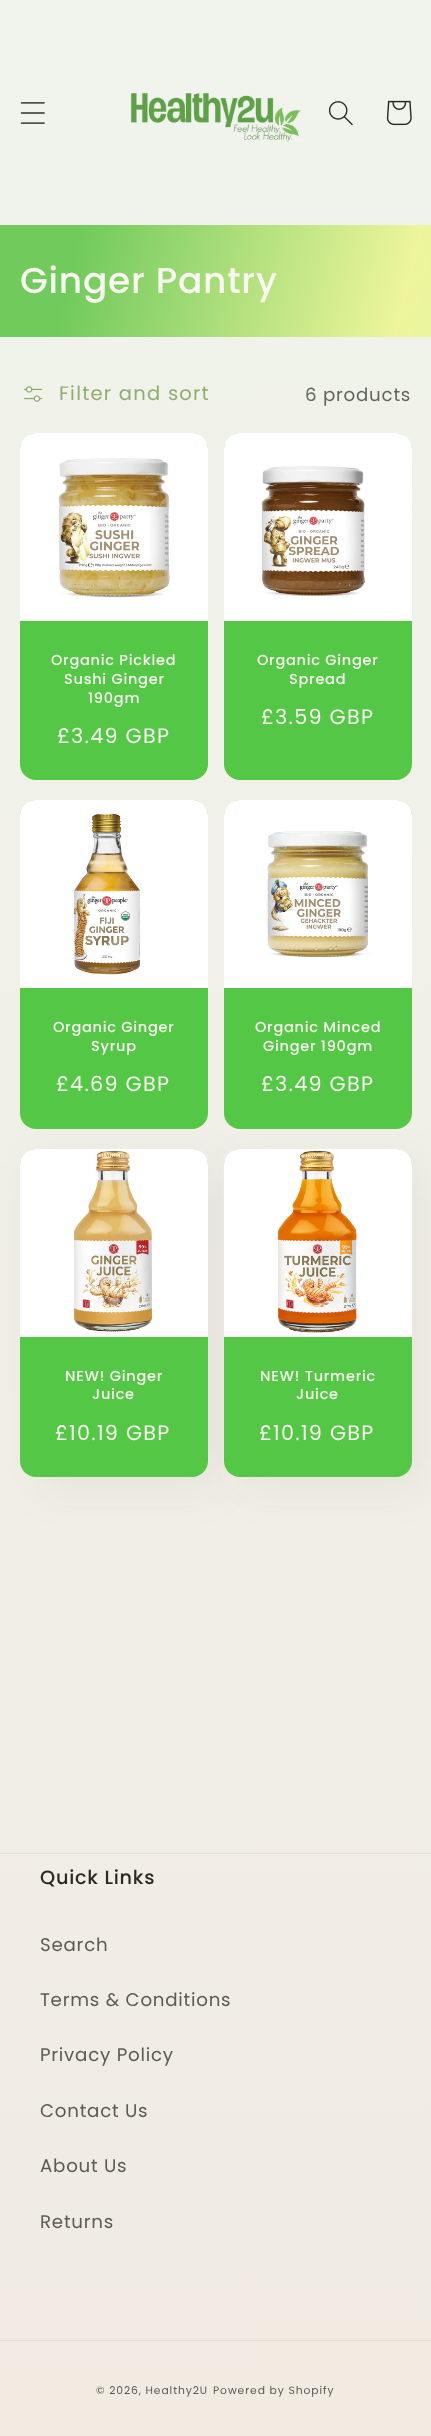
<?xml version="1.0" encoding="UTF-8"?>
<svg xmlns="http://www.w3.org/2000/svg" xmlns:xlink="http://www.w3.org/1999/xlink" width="431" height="2436">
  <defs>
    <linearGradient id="g1" gradientUnits="userSpaceOnUse" x1="215" y1="0" x2="216" y2="2436"><stop offset="0" stop-color="#f0f4ec" /><stop offset="1" stop-color="#f1ebe2" /></linearGradient>
    <linearGradient id="g2" gradientUnits="userSpaceOnUse" x1="-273" y1="1096" x2="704" y2="1340"><stop offset="0.13" stop-color="#70ca5c" /><stop offset="0.46" stop-color="#eef59c" /><stop offset="0.77" stop-color="#c9f1b1" /><stop offset="0.94" stop-color="#73d141" /></linearGradient>
  </defs>
  <rect width="100%" height="100%" fill="#ffffff" />
  <rect width="431" height="2436" fill="url(#g1)" />
  <image x="20" y="102" width="25" height="22" xlink:href="image1.png" />
  <image x="130" y="93" width="171" height="49" xlink:href="image2.png" />
  <image x="328" y="101" width="25" height="25" xlink:href="image3.png" />
  <image x="386" y="100" width="26" height="26" xlink:href="image4.png" />
  <rect y="225" width="431" height="112" fill="url(#g2)" />
  <image x="23" y="386" width="20" height="16" xlink:href="image5.png" />
  <rect x="20" y="433" width="188" height="347" rx="16" fill="#55c746" />
  <image x="20" y="433" width="188" height="188" xlink:href="image6.png" />
  <rect x="224" y="433" width="188" height="347" rx="16" fill="#55c746" />
  <image x="224" y="433" width="188" height="188" xlink:href="image7.png" />
  <rect x="33" y="1162" width="188" height="328" rx="16" fill="#282b25" fill-opacity="0.05" filter="blur(23px)" />
  <rect x="237" y="1162" width="188" height="328" rx="16" fill="#282b25" fill-opacity="0.05" filter="blur(23px)" />
  <rect x="20" y="800" width="188" height="329" rx="16" fill="#55c746" />
  <image x="20" y="800" width="188" height="188" xlink:href="image8.png" />
  <rect x="224" y="800" width="188" height="329" rx="16" fill="#55c746" />
  <image x="224" y="800" width="188" height="188" xlink:href="image9.png" />
  <rect x="20" y="1149" width="188" height="328" rx="16" fill="#55c746" />
  <image x="20" y="1149" width="188" height="188" xlink:href="image10.png" />
  <rect x="224" y="1149" width="188" height="328" rx="16" fill="#55c746" />
  <image x="224" y="1149" width="188" height="188" xlink:href="image11.png" />
  <rect y="1853" width="431" height="1" fill="#e1ddd5" />
  <rect y="2340" width="431" height="1" fill="#e1dcd3" />
  <text x="20" y="293" style="font-family: Poppins; font-size: 36px; font-weight: 500; letter-spacing: 0.75px; fill: #faf7f2">Ginger Pantry</text>
  <text x="59" y="400" style="font-family: Poppins; font-size: 19.5px; letter-spacing: 1.25px; fill: #8fac71">Filter and sort</text>
  <text x="305" y="401" style="font-family: Poppins; font-size: 18.25px; letter-spacing: 0.75px; fill: #646760">6 products</text>
  <text x="51" y="665" style="font-family: Poppins; font-size: 14.5px; font-weight: 500; letter-spacing: 0.75px; fill: #faf7f2">Organic Pickled</text>
  <text x="64" y="684" style="font-family: Poppins; font-size: 14.5px; font-weight: 500; letter-spacing: 0.75px; fill: #faf7f2">Sushi Ginger</text>
  <text x="88" y="703" style="font-family: Poppins; font-size: 14.5px; font-weight: 500; letter-spacing: 0.75px; fill: #faf7f2">190gm</text>
  <text x="57" y="743" style="font-family: Poppins; font-size: 20.75px; letter-spacing: 1.25px; fill: #faf7f2">£3.49 GBP</text>
  <text x="257" y="665" style="font-family: Poppins; font-size: 14.5px; font-weight: 500; letter-spacing: 0.75px; fill: #faf7f2">Organic Ginger</text>
  <text x="289" y="684" style="font-family: Poppins; font-size: 14.5px; font-weight: 500; letter-spacing: 0.75px; fill: #faf7f2">Spread</text>
  <text x="261" y="724" style="font-family: Poppins; font-size: 20.75px; letter-spacing: 1.25px; fill: #faf7f2">£3.59 GBP</text>
  <text x="53" y="1032" style="font-family: Poppins; font-size: 14.5px; font-weight: 500; letter-spacing: 0.75px; fill: #faf7f2">Organic Ginger</text>
  <text x="91" y="1051" style="font-family: Poppins; font-size: 14.5px; font-weight: 500; letter-spacing: 0.75px; fill: #faf7f2">Syrup</text>
  <text x="56" y="1091" style="font-family: Poppins; font-size: 20.75px; letter-spacing: 1.25px; fill: #faf7f2">£4.69 GBP</text>
  <text x="255" y="1032" style="font-family: Poppins; font-size: 14.5px; font-weight: 500; letter-spacing: 0.75px; fill: #faf7f2">Organic Minced</text>
  <text x="263" y="1051" style="font-family: Poppins; font-size: 14.5px; font-weight: 500; letter-spacing: 0.75px; fill: #faf7f2">Ginger 190gm</text>
  <text x="261" y="1091" style="font-family: Poppins; font-size: 20.75px; letter-spacing: 1.25px; fill: #faf7f2">£3.49 GBP</text>
  <text x="65" y="1381" style="font-family: Poppins; font-size: 14.5px; font-weight: 500; letter-spacing: 0.75px; fill: #faf7f2">NEW! Ginger</text>
  <text x="92" y="1399" style="font-family: Poppins; font-size: 14.5px; font-weight: 500; letter-spacing: 0.75px; fill: #faf7f2">Juice</text>
  <text x="55" y="1440" style="font-family: Poppins; font-size: 20.75px; letter-spacing: 1.25px; fill: #faf7f2">£10.19 GBP</text>
  <text x="260" y="1381" style="font-family: Poppins; font-size: 14.5px; font-weight: 500; letter-spacing: 0.75px; fill: #faf7f2">NEW! Turmeric</text>
  <text x="296" y="1399" style="font-family: Poppins; font-size: 14.5px; font-weight: 500; letter-spacing: 0.75px; fill: #faf7f2">Juice</text>
  <text x="259" y="1440" style="font-family: Poppins; font-size: 20.75px; letter-spacing: 1.25px; fill: #faf7f2">£10.19 GBP</text>
  <text x="40" y="1884" style="font-family: Poppins; font-size: 19.25px; font-weight: 500; letter-spacing: 0.75px; fill: #282b25">Quick Links</text>
  <text x="40" y="1951" style="font-family: Poppins; font-size: 18.25px; letter-spacing: 0.75px; fill: #5a5c55">Search</text>
  <text x="40" y="2006" style="font-family: Poppins; font-size: 18.25px; letter-spacing: 0.75px; fill: #5a5c55">Terms &amp; Conditions</text>
  <text x="40" y="2061" style="font-family: Poppins; font-size: 18.25px; letter-spacing: 0.75px; fill: #5a5c55">Privacy Policy</text>
  <text x="40" y="2117" style="font-family: Poppins; font-size: 18.25px; letter-spacing: 0.75px; fill: #5a5c55">Contact Us</text>
  <text x="40" y="2172" style="font-family: Poppins; font-size: 18.25px; letter-spacing: 0.75px; fill: #5a5c55">About Us</text>
  <text x="40" y="2228" style="font-family: Poppins; font-size: 18.25px; letter-spacing: 0.75px; fill: #5a5c55">Returns</text>
  <text x="96" y="2394" style="font-family: Poppins; font-size: 10.75px; letter-spacing: 0.9px; fill: #5a5c55">© 2026, Healthy2U</text>
  <text x="213" y="2394" style="font-family: Poppins; font-size: 10.75px; letter-spacing: 0.9px; fill: #5a5c55">Powered by Shopify</text>
</svg>
